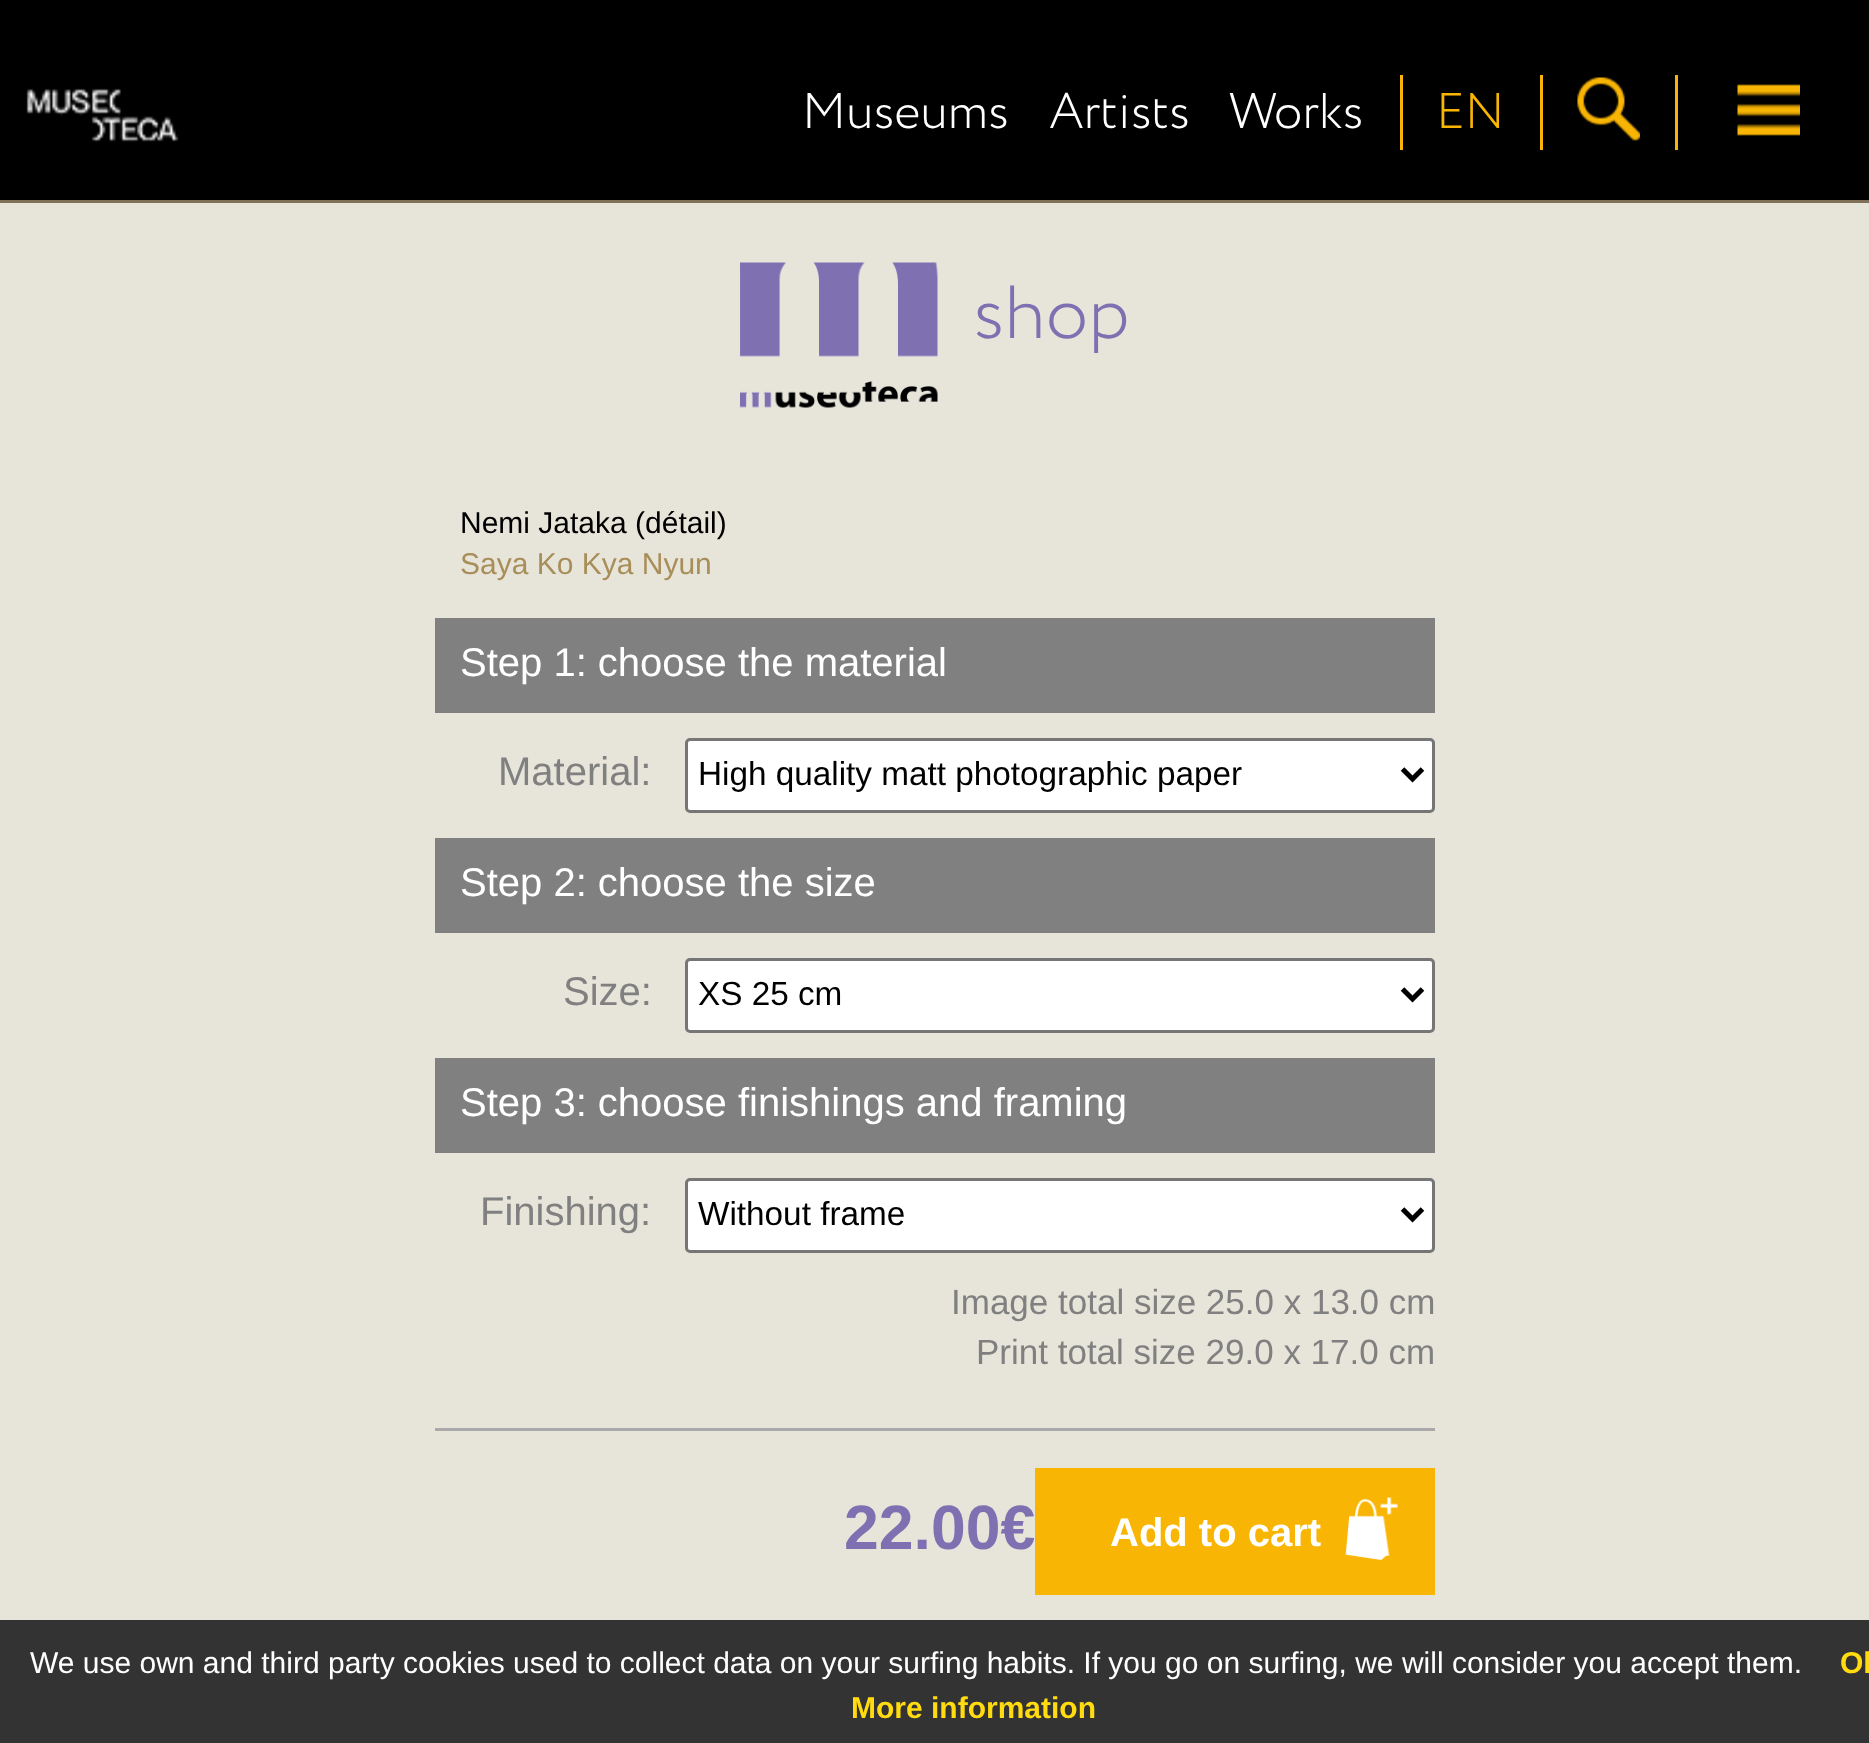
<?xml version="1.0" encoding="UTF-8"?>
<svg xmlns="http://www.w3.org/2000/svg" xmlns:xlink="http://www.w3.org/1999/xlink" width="1869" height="1743">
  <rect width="100%" height="100%" fill="#e7e5da" />
  <rect width="1869" height="200" fill="#000000" />
  <rect y="200" width="1869" height="3" fill="#807057" />
  <image x="26" y="88" width="153" height="54" xlink:href="image1.png" />
  <rect x="1400" y="75" width="3" height="75" fill="#f9b503" />
  <rect x="1540" y="75" width="3" height="75" fill="#f9b503" />
  <image x="1577" y="77" width="63" height="64" xlink:href="image2.png" />
  <rect x="1675" y="75" width="3" height="75" fill="#f9b503" />
  <image x="1737" y="84" width="63" height="52" xlink:href="image3.png" />
  <image x="740" y="262" width="198" height="146" xlink:href="image4.png" />
  <rect x="435" y="618" width="1000" height="95" fill="#808080" />
  <rect x="686.5" y="739.5" width="747" height="72" rx="3.5" fill="#ffffff" stroke="#767676" stroke-width="3" />
  <path d="M 1402.5 769 l 10 10 l 10 -10" fill="none" stroke="#000000" stroke-width="5" />
  <rect x="435" y="838" width="1000" height="95" fill="#808080" />
  <rect x="686.5" y="959.5" width="747" height="72" rx="3.5" fill="#ffffff" stroke="#767676" stroke-width="3" />
  <path d="M 1402.5 989 l 10 10 l 10 -10" fill="none" stroke="#000000" stroke-width="5" />
  <rect x="435" y="1058" width="1000" height="95" fill="#808080" />
  <rect x="686.5" y="1179.5" width="747" height="72" rx="3.5" fill="#ffffff" stroke="#767676" stroke-width="3" />
  <path d="M 1402.5 1209 l 10 10 l 10 -10" fill="none" stroke="#000000" stroke-width="5" />
  <rect x="435" y="1428" width="1000" height="3" fill="#aaaaaa" />
  <rect x="1035" y="1468" width="400" height="127" fill="#f9b503" />
  <image x="1345" y="1497" width="53" height="63" xlink:href="image5.png" />
  <rect y="1620" width="1869" height="123" fill="#333333" />
  <text x="802" y="128" style="font-family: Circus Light; font-size: 50px; font-weight: 300; fill: #ffffff">Museums</text>
  <text x="1049" y="128" style="font-family: Circus Light; font-size: 50px; font-weight: 300; fill: #ffffff">Artists</text>
  <text x="1229" y="128" style="font-family: Circus Light; font-size: 50px; font-weight: 300; fill: #ffffff">Works</text>
  <text x="1436" y="128" style="font-family: Circus Light; font-size: 50px; font-weight: 300; fill: #f9b503">EN</text>
  <text x="973" y="338" style="font-family: Circus Light; font-size: 75px; font-weight: 300; fill: #7e70b1">shop</text>
  <text x="460" y="533" style="font-family: Liberation Sans; font-size: 30px; fill: #000000">Nemi Jataka (détail)</text>
  <text x="460" y="574" style="font-family: Liberation Sans; font-size: 30px; fill: #a88e59">Saya Ko Kya Nyun</text>
  <text x="460" y="676" style="font-family: Liberation Sans; font-size: 40px; fill: #ffffff">Step 1: choose the material</text>
  <text x="498" y="785" style="font-family: Liberation Sans; font-size: 40px; fill: #808080">Material:</text>
  <text x="698" y="785" style="font-family: Liberation Sans; font-size: 33.3px; fill: #000000">High quality matt photographic paper</text>
  <text x="460" y="896" style="font-family: Liberation Sans; font-size: 40px; fill: #ffffff">Step 2: choose the size</text>
  <text x="563" y="1005" style="font-family: Liberation Sans; font-size: 40px; fill: #808080">Size:</text>
  <text x="698" y="1005" style="font-family: Liberation Sans; font-size: 33.3px; fill: #000000">XS 25 cm</text>
  <text x="460" y="1116" style="font-family: Liberation Sans; font-size: 40px; fill: #ffffff">Step 3: choose finishings and framing</text>
  <text x="480" y="1225" style="font-family: Liberation Sans; font-size: 40px; fill: #808080">Finishing:</text>
  <text x="698" y="1225" style="font-family: Liberation Sans; font-size: 33.3px; fill: #000000">Without frame</text>
  <text x="951" y="1314" style="font-family: Liberation Sans; font-size: 35px; fill: #808080">Image total size 25.0 x 13.0 cm</text>
  <text x="976" y="1364" style="font-family: Liberation Sans; font-size: 35px; fill: #808080">Print total size 29.0 x 17.0 cm</text>
  <text x="844" y="1549" style="font-family: Liberation Sans; font-size: 62.5px; font-weight: bold; fill: #7e70b1">22.00€</text>
  <text x="1110" y="1546" style="font-family: Liberation Sans; font-size: 40px; font-weight: bold; fill: #ffffff">Add to cart</text>
  <text x="30" y="1673" style="font-family: Liberation Sans; font-size: 30px; fill: #ffffff">We use own and third party cookies used to collect data on your surfing habits. If you go on surfing, we will consider you accept them.</text>
  <text x="1840" y="1673" style="font-family: Liberation Sans; font-size: 30px; font-weight: bold; fill: #ffdb0f">Ok</text>
  <text x="851" y="1718" style="font-family: Liberation Sans; font-size: 30px; font-weight: bold; fill: #ffdb0f">More information</text>
</svg>
